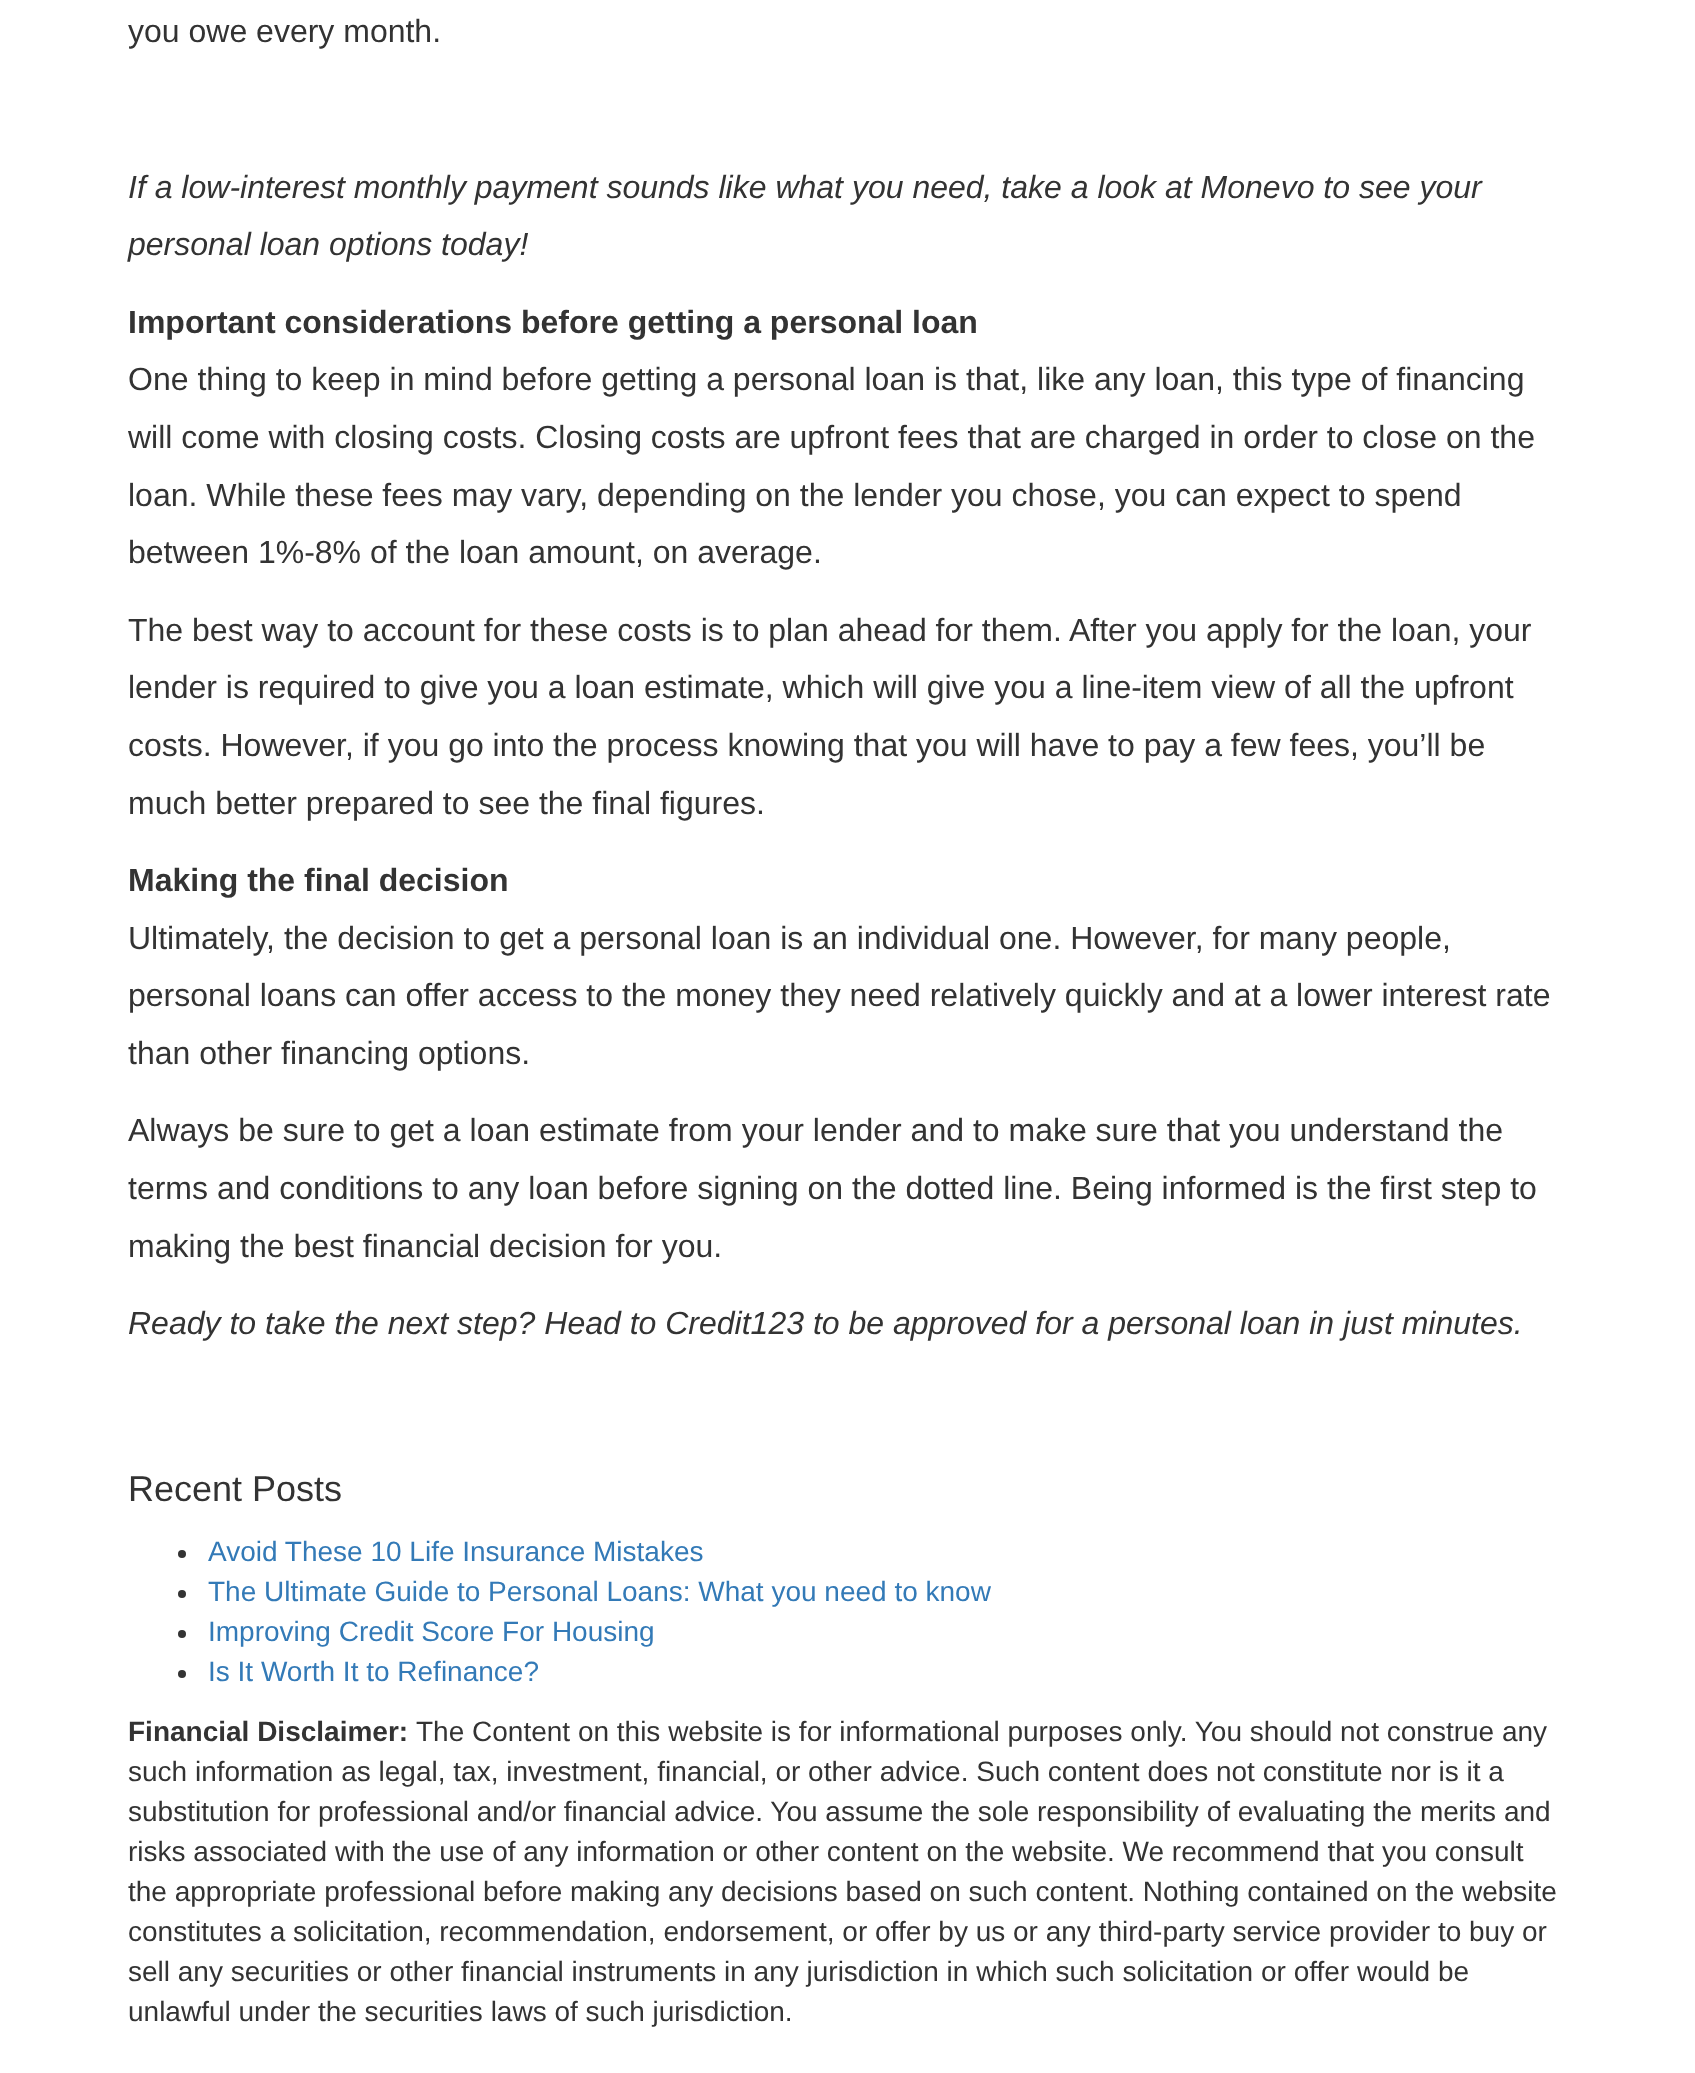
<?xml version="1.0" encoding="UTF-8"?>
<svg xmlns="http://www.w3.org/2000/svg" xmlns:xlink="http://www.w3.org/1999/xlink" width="1695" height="2073">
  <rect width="100%" height="100%" fill="#ffffff" />
  <circle cx="182" cy="1554" r="4" fill="#333333" />
  <circle cx="182" cy="1594" r="4" fill="#333333" />
  <circle cx="182" cy="1634" r="4" fill="#333333" />
  <circle cx="182" cy="1674" r="4" fill="#333333" />
  <text x="128" y="42" style="font-family: Liberation Sans; font-size: 32px; fill: #333333">you owe every month.</text>
  <text x="128" y="198" style="font-family: Liberation Sans; font-size: 32px; font-style: italic; fill: #333333">If a low-interest monthly payment sounds like what you need, take a look at Monevo to see your</text>
  <text x="128" y="255" style="font-family: Liberation Sans; font-size: 32px; font-style: italic; fill: #333333">personal loan options today!</text>
  <text x="128" y="333" style="font-family: Liberation Sans; font-size: 32px; font-weight: bold; fill: #333333">Important considerations before getting a personal loan</text>
  <text x="128" y="390" style="font-family: Liberation Sans; font-size: 32px; fill: #333333">One thing to keep in mind before getting a personal loan is that, like any loan, this type of financing</text>
  <text x="128" y="448" style="font-family: Liberation Sans; font-size: 32px; fill: #333333">will come with closing costs. Closing costs are upfront fees that are charged in order to close on the</text>
  <text x="128" y="506" style="font-family: Liberation Sans; font-size: 32px; fill: #333333">loan. While these fees may vary, depending on the lender you chose, you can expect to spend</text>
  <text x="128" y="563" style="font-family: Liberation Sans; font-size: 32px; fill: #333333">between 1%-8% of the loan amount, on average.</text>
  <text x="128" y="641" style="font-family: Liberation Sans; font-size: 32px; fill: #333333">The best way to account for these costs is to plan ahead for them. After you apply for the loan, your</text>
  <text x="128" y="698" style="font-family: Liberation Sans; font-size: 32px; fill: #333333">lender is required to give you a loan estimate, which will give you a line-item view of all the upfront</text>
  <text x="128" y="756" style="font-family: Liberation Sans; font-size: 32px; fill: #333333">costs. However, if you go into the process knowing that you will have to pay a few fees, you’ll be</text>
  <text x="128" y="814" style="font-family: Liberation Sans; font-size: 32px; fill: #333333">much better prepared to see the final figures.</text>
  <text x="128" y="891" style="font-family: Liberation Sans; font-size: 32px; font-weight: bold; fill: #333333">Making the final decision</text>
  <text x="128" y="949" style="font-family: Liberation Sans; font-size: 32px; fill: #333333">Ultimately, the decision to get a personal loan is an individual one. However, for many people,</text>
  <text x="128" y="1006" style="font-family: Liberation Sans; font-size: 32px; fill: #333333">personal loans can offer access to the money they need relatively quickly and at a lower interest rate</text>
  <text x="128" y="1064" style="font-family: Liberation Sans; font-size: 32px; fill: #333333">than other financing options.</text>
  <text x="128" y="1141" style="font-family: Liberation Sans; font-size: 32px; fill: #333333">Always be sure to get a loan estimate from your lender and to make sure that you understand the</text>
  <text x="128" y="1199" style="font-family: Liberation Sans; font-size: 32px; fill: #333333">terms and conditions to any loan before signing on the dotted line. Being informed is the first step to</text>
  <text x="128" y="1257" style="font-family: Liberation Sans; font-size: 32px; fill: #333333">making the best financial decision for you.</text>
  <text x="128" y="1334" style="font-family: Liberation Sans; font-size: 32px; font-style: italic; fill: #333333">Ready to take the next step? Head to Credit123 to be approved for a personal loan in just minutes.</text>
  <text x="128" y="1501" style="font-family: Liberation Sans; font-size: 36px; fill: #333333">Recent Posts</text>
  <text x="208" y="1561" style="font-family: Liberation Sans; font-size: 28px; fill: #337ab7">Avoid These 10 Life Insurance Mistakes</text>
  <text x="208" y="1601" style="font-family: Liberation Sans; font-size: 28px; fill: #337ab7">The Ultimate Guide to Personal Loans: What you need to know</text>
  <text x="208" y="1641" style="font-family: Liberation Sans; font-size: 28px; fill: #337ab7">Improving Credit Score For Housing</text>
  <text x="208" y="1681" style="font-family: Liberation Sans; font-size: 28px; fill: #337ab7">Is It Worth It to Refinance?</text>
  <text x="128" y="1741" style="font-family: Liberation Sans; font-size: 28px; font-weight: bold; fill: #333333">Financial Disclaimer:</text>
  <text x="416" y="1741" style="font-family: Liberation Sans; font-size: 28px; fill: #333333">The Content on this website is for informational purposes only. You should not construe any</text>
  <text x="128" y="1781" style="font-family: Liberation Sans; font-size: 28px; fill: #333333">such information as legal, tax, investment, financial, or other advice. Such content does not constitute nor is it a</text>
  <text x="128" y="1821" style="font-family: Liberation Sans; font-size: 28px; fill: #333333">substitution for professional and/or financial advice. You assume the sole responsibility of evaluating the merits and</text>
  <text x="128" y="1861" style="font-family: Liberation Sans; font-size: 28px; fill: #333333">risks associated with the use of any information or other content on the website. We recommend that you consult</text>
  <text x="128" y="1901" style="font-family: Liberation Sans; font-size: 28px; fill: #333333">the appropriate professional before making any decisions based on such content. Nothing contained on the website</text>
  <text x="128" y="1941" style="font-family: Liberation Sans; font-size: 28px; fill: #333333">constitutes a solicitation, recommendation, endorsement, or offer by us or any third-party service provider to buy or</text>
  <text x="128" y="1981" style="font-family: Liberation Sans; font-size: 28px; fill: #333333">sell any securities or other financial instruments in any jurisdiction in which such solicitation or offer would be</text>
  <text x="128" y="2021" style="font-family: Liberation Sans; font-size: 28px; fill: #333333">unlawful under the securities laws of such jurisdiction.</text>
</svg>
